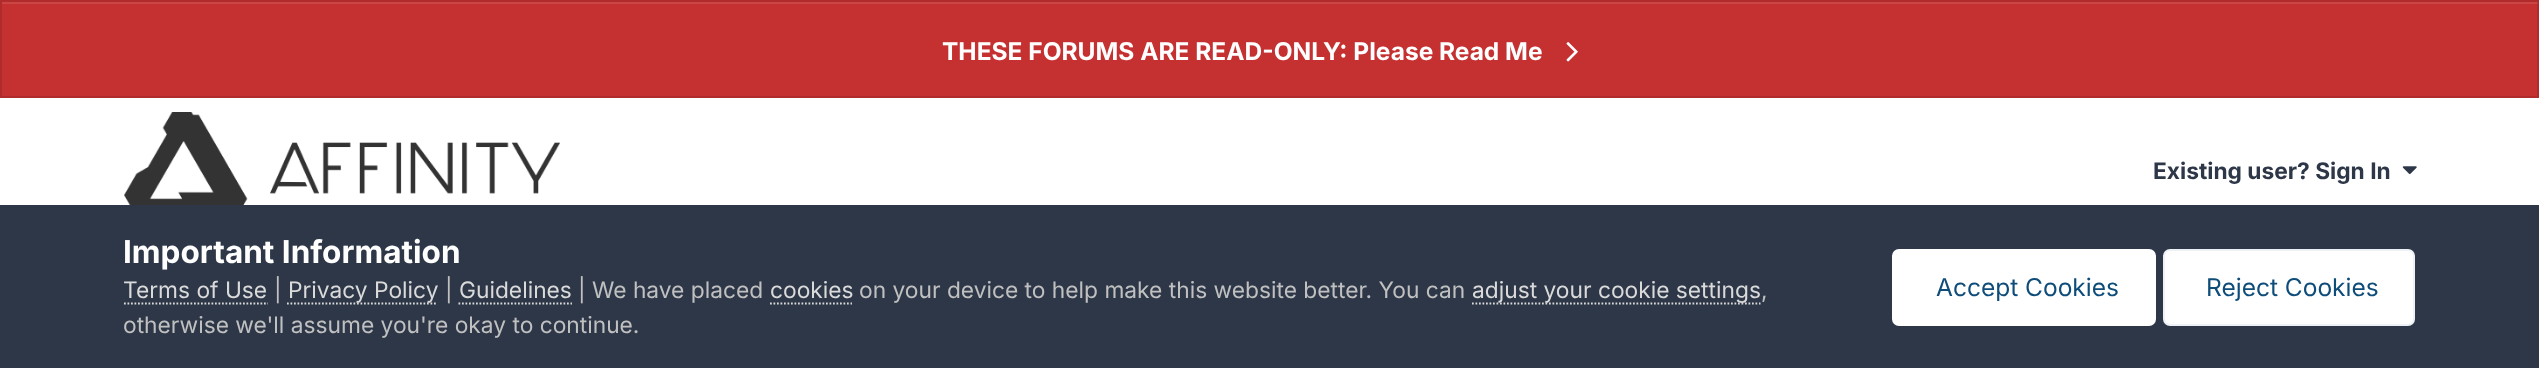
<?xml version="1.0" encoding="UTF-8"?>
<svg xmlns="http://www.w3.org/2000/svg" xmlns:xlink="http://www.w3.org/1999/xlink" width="2539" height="368">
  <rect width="100%" height="100%" fill="#ffffff" />
  <rect width="2539" height="98" fill="#c53030" />
  <rect x="2" y="2" width="2536" height="2" fill="#cb4545" />
  <rect x="1" y="1" width="2537" height="96" fill="none" stroke="#000000" stroke-opacity="0.1" stroke-width="2" />
  <image x="1566" y="42" width="12" height="20" xlink:href="image1.png" />
  <image x="124" y="112" width="436" height="93" xlink:href="image2.png" />
  <image x="2402" y="166" width="15" height="9" xlink:href="image3.png" />
  <rect y="205" width="2539" height="163" fill="#2d3748" />
  <path d="M 124 303.5 h 144" fill="none" stroke="#dadada" stroke-width="1.8" stroke-dasharray="1.75 1.75" />
  <path d="M 287 303.5 h 150.5" fill="none" stroke="#dadada" stroke-width="1.8" stroke-dasharray="1.75 1.75" />
  <path d="M 458.5 303.5 h 113.5" fill="none" stroke="#dadada" stroke-width="1.8" stroke-dasharray="1.75 1.75" />
  <path d="M 770 303.5 h 82" fill="none" stroke="#dadada" stroke-width="1.8" stroke-dasharray="1.75 1.75" />
  <path d="M 1472 303.5 h 288.5" fill="none" stroke="#dadada" stroke-width="1.8" stroke-dasharray="1.75 1.75" />
  <rect x="1892" y="249" width="264" height="77" rx="7" fill="#ffffff" />
  <rect x="2163" y="249" width="252" height="77" rx="7" fill="#ffffff" />
  <rect x="2164" y="250" width="250" height="75" rx="6" fill="none" stroke="#0e4c79" stroke-opacity="0.07" stroke-width="2" />
  <text x="942" y="60" style="font-family: Inter; font-size: 24.5px; font-weight: bold; fill: #ffffff">THESE FORUMS ARE READ-ONLY: Please Read Me</text>
  <text x="2153" y="179" style="font-family: Inter; font-size: 22.75px; font-weight: bold; fill: #2d3748">Existing user? Sign In</text>
  <text x="123" y="263" style="font-family: Inter; font-size: 31.5px; font-weight: bold; fill: #ffffff">Important Information</text>
  <text x="123" y="298" style="font-family: Inter; font-size: 22.75px; fill: #dadada">Terms of Use</text>
  <text x="274" y="298" style="font-family: Inter; font-size: 22.75px; fill: #c0c0c0">|</text>
  <text x="288" y="298" style="font-family: Inter; font-size: 22.75px; fill: #dadada">Privacy Policy</text>
  <text x="445" y="298" style="font-family: Inter; font-size: 22.75px; fill: #c0c0c0">|</text>
  <text x="459" y="298" style="font-family: Inter; font-size: 22.75px; fill: #dadada">Guidelines</text>
  <text x="578" y="298" style="font-family: Inter; font-size: 22.75px; fill: #c0c0c0">| We have placed</text>
  <text x="770" y="298" style="font-family: Inter; font-size: 22.75px; fill: #dadada">cookies</text>
  <text x="859" y="298" style="font-family: Inter; font-size: 22.75px; fill: #c0c0c0">on your device to help make this website better. You can</text>
  <text x="1472" y="298" style="font-family: Inter; font-size: 22.75px; fill: #dadada">adjust your cookie settings</text>
  <text x="1761" y="298" style="font-family: Inter; font-size: 22.75px; fill: #c0c0c0">,</text>
  <text x="123" y="333" style="font-family: Inter; font-size: 22.75px; fill: #c0c0c0">otherwise we'll assume you're okay to continue.</text>
  <text x="1936" y="296" style="font-family: Inter; font-size: 24.5px; fill: #0e4c79">Accept Cookies</text>
  <text x="2206" y="296" style="font-family: Inter; font-size: 24.5px; fill: #0e4c79">Reject Cookies</text>
</svg>
